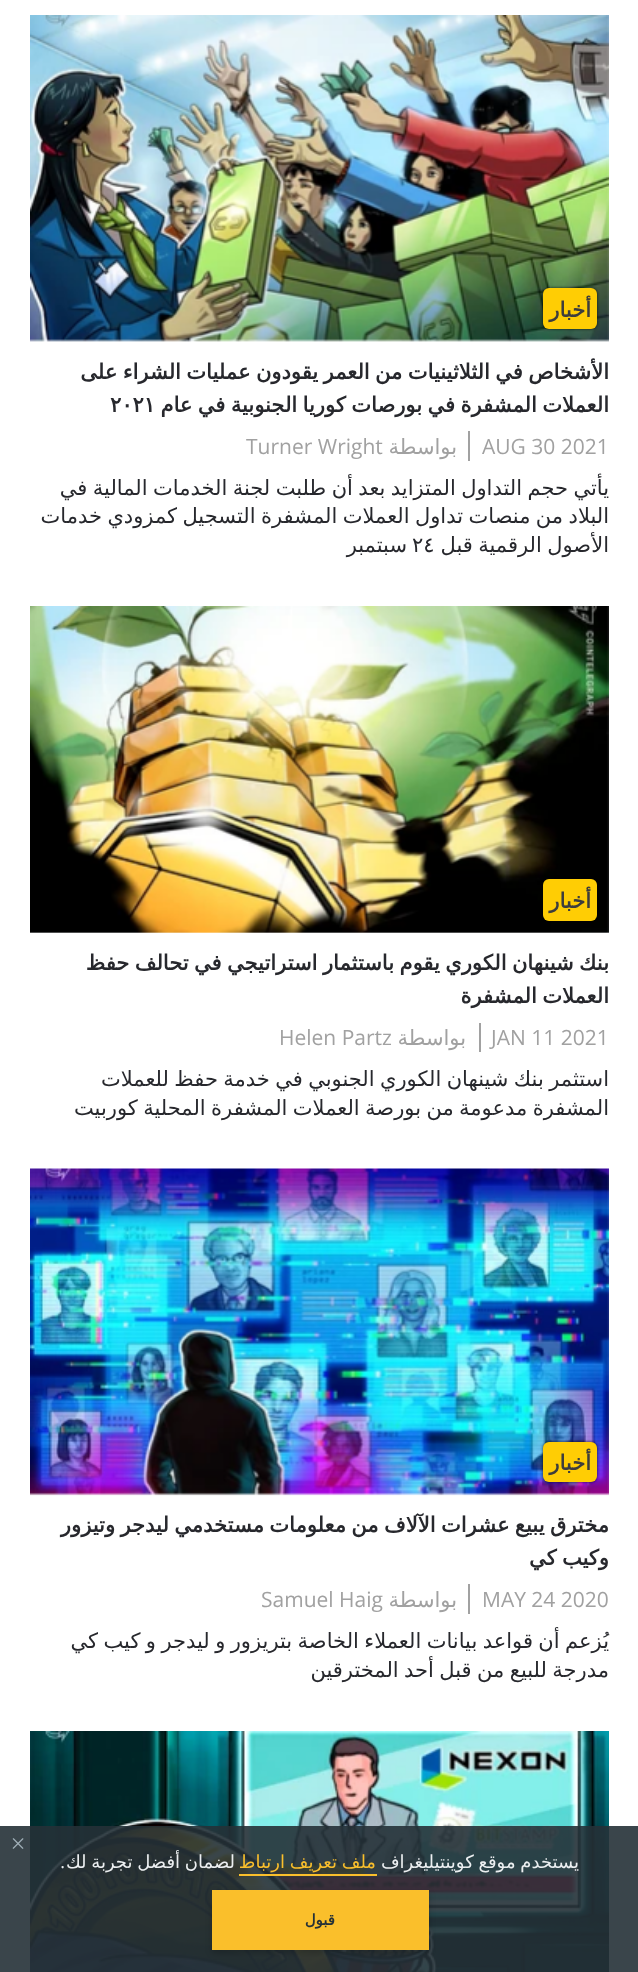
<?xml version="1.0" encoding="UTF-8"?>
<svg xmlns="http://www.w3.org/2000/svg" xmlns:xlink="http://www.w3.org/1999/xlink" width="638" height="1972">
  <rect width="100%" height="100%" fill="#ffffff" />
  <rect x="30" y="15" width="579" height="326" fill="#f6f7f8" />
  <image x="30" y="15" width="579" height="327" xlink:href="image1.png" />
  <rect x="543" y="288" width="54" height="41" rx="6" fill="#000000" fill-opacity="0.75" filter="blur(1.5px)" />
  <rect x="543" y="288" width="54" height="41" rx="6" fill="#ffcd04" />
  <rect x="468" y="431" width="2" height="30" fill="#a1a1a1" />
  <rect x="30" y="606" width="579" height="327" fill="#f6f7f8" />
  <image x="30" y="606" width="579" height="327" xlink:href="image2.png" />
  <rect x="543" y="879" width="54" height="42" rx="6" fill="#ffcd04" />
  <rect x="479" y="1023" width="2" height="29" fill="#a1a1a1" />
  <rect x="30" y="1169" width="579" height="325" fill="#f6f7f8" />
  <image x="30" y="1168" width="579" height="328" xlink:href="image3.png" />
  <rect x="543" y="1442" width="54" height="40" rx="6" fill="#000000" fill-opacity="0.75" filter="blur(1.5px)" />
  <rect x="543" y="1442" width="54" height="40" rx="6" fill="#ffcd04" />
  <rect x="468" y="1584" width="2" height="30" fill="#a1a1a1" />
  <image x="30" y="1731" width="579" height="241" xlink:href="image4.png" />
  <rect y="1826" width="638" height="146" fill="#253137" fill-opacity="0.9" />
  <image x="12" y="1838" width="12" height="11" xlink:href="image5.png" />
  <rect x="239" y="1874" width="138" height="2" fill="#fabf2c" />
  <rect x="212" y="1893" width="217" height="60" fill="#000000" fill-opacity="0.2" filter="blur(3px)" />
  <rect x="212" y="1890" width="217" height="60" fill="#fabf2b" />
  <text x="591" y="317" style="font-family: DejaVu Sans; font-size: 21px; font-weight: bold; direction: rtl; fill: #3d3d3d">أخبار</text>
  <text x="609" y="379" word-spacing="-1.25" style="font-family: DejaVu Sans; font-size: 21px; font-weight: bold; direction: rtl; fill: #27282d">الأشخاص في الثلاثينيات من العمر يقودون عمليات الشراء على</text>
  <text x="609" y="412" word-spacing="-1.25" style="font-family: DejaVu Sans; font-size: 21px; font-weight: bold; direction: rtl; fill: #27282d">العملات المشفرة في بورصات كوريا الجنوبية في عام</text>
  <text x="110" y="412" style="font-family: DejaVu Sans; font-size: 21px; font-weight: bold; fill: #27282d">٢٠٢١</text>
  <text x="482" y="454" style="font-family: Open Sans; font-size: 21px; fill: #a1a1a1">AUG 30 2021</text>
  <text x="457" y="454" style="font-family: DejaVu Sans; font-size: 21px; direction: rtl; fill: #a1a1a1">بواسطة</text>
  <text x="246" y="454" style="font-family: Open Sans; font-size: 21px; fill: #a1a1a1">Turner Wright</text>
  <text x="609" y="495" word-spacing="-1.25" style="font-family: DejaVu Sans; font-size: 21px; direction: rtl; fill: #27282d">يأتي حجم التداول المتزايد بعد أن طلبت لجنة الخدمات المالية في</text>
  <text x="609" y="523" word-spacing="-1.25" style="font-family: DejaVu Sans; font-size: 21px; direction: rtl; fill: #27282d">البلاد من منصات تداول العملات المشفرة التسجيل كمزودي خدمات</text>
  <text x="609" y="552" word-spacing="-1.25" style="font-family: DejaVu Sans; font-size: 21px; direction: rtl; fill: #27282d">الأصول الرقمية قبل</text>
  <text x="412" y="552" style="font-family: DejaVu Sans; font-size: 21px; fill: #27282d">٢٤</text>
  <text x="407" y="552" style="font-family: DejaVu Sans; font-size: 21px; direction: rtl; fill: #27282d">سبتمبر</text>
  <text x="591" y="908" style="font-family: DejaVu Sans; font-size: 21px; font-weight: bold; direction: rtl; fill: #3d3d3d">أخبار</text>
  <text x="609" y="970" word-spacing="-1.25" style="font-family: DejaVu Sans; font-size: 21px; font-weight: bold; direction: rtl; fill: #27282d">بنك شينهان الكوري يقوم باستثمار استراتيجي في تحالف حفظ</text>
  <text x="609" y="1003" word-spacing="-1.25" style="font-family: DejaVu Sans; font-size: 21px; font-weight: bold; direction: rtl; fill: #27282d">العملات المشفرة</text>
  <text x="491" y="1045" style="font-family: Open Sans; font-size: 21px; fill: #a1a1a1">JAN 11 2021</text>
  <text x="466" y="1045" style="font-family: DejaVu Sans; font-size: 21px; direction: rtl; fill: #a1a1a1">بواسطة</text>
  <text x="279" y="1045" style="font-family: Open Sans; font-size: 21px; fill: #a1a1a1">Helen Partz</text>
  <text x="609" y="1086" word-spacing="-1.25" style="font-family: DejaVu Sans; font-size: 21px; direction: rtl; fill: #27282d">استثمر بنك شينهان الكوري الجنوبي في خدمة حفظ للعملات</text>
  <text x="609" y="1115" word-spacing="-1.25" style="font-family: DejaVu Sans; font-size: 21px; direction: rtl; fill: #27282d">المشفرة مدعومة من بورصة العملات المشفرة المحلية كوربيت</text>
  <text x="591" y="1470" style="font-family: DejaVu Sans; font-size: 21px; font-weight: bold; direction: rtl; fill: #3d3d3d">أخبار</text>
  <text x="609" y="1532" word-spacing="-1.25" style="font-family: DejaVu Sans; font-size: 21px; font-weight: bold; direction: rtl; fill: #27282d">مخترق يبيع عشرات الآلاف من معلومات مستخدمي ليدجر وتيزور</text>
  <text x="609" y="1565" word-spacing="-1.25" style="font-family: DejaVu Sans; font-size: 21px; font-weight: bold; direction: rtl; fill: #27282d">وكيب كي</text>
  <text x="482" y="1607" style="font-family: Open Sans; font-size: 21px; fill: #a1a1a1">MAY 24 2020</text>
  <text x="457" y="1607" style="font-family: DejaVu Sans; font-size: 21px; direction: rtl; fill: #a1a1a1">بواسطة</text>
  <text x="261" y="1607" style="font-family: Open Sans; font-size: 21px; fill: #a1a1a1">Samuel Haig</text>
  <text x="609" y="1648" word-spacing="-1.25" style="font-family: DejaVu Sans; font-size: 21px; direction: rtl; fill: #27282d">يُزعم أن قواعد بيانات العملاء الخاصة بتريزور و ليدجر و كيب كي</text>
  <text x="609" y="1677" word-spacing="-1.25" style="font-family: DejaVu Sans; font-size: 21px; direction: rtl; fill: #27282d">مدرجة للبيع من قبل أحد المخترقين</text>
  <text x="579" y="1868" word-spacing="-1" style="font-family: DejaVu Sans; font-size: 18px; direction: rtl; fill: #eceff1">يستخدم موقع كوينتيليغراف</text>
  <text x="376" y="1868" word-spacing="-1" style="font-family: DejaVu Sans; font-size: 18px; direction: rtl; fill: #fabf2c">ملف تعريف ارتباط</text>
  <text x="235" y="1868" word-spacing="-1" style="font-family: DejaVu Sans; font-size: 18px; direction: rtl; fill: #eceff1">لضمان أفضل تجربة لك</text>
  <text x="65" y="1868" style="font-family: Open Sans; font-size: 18px; direction: rtl; fill: #eceff1">.</text>
  <text x="335" y="1925" style="font-family: DejaVu Sans; font-size: 15px; font-weight: bold; direction: rtl; fill: #253137">قبول</text>
</svg>
